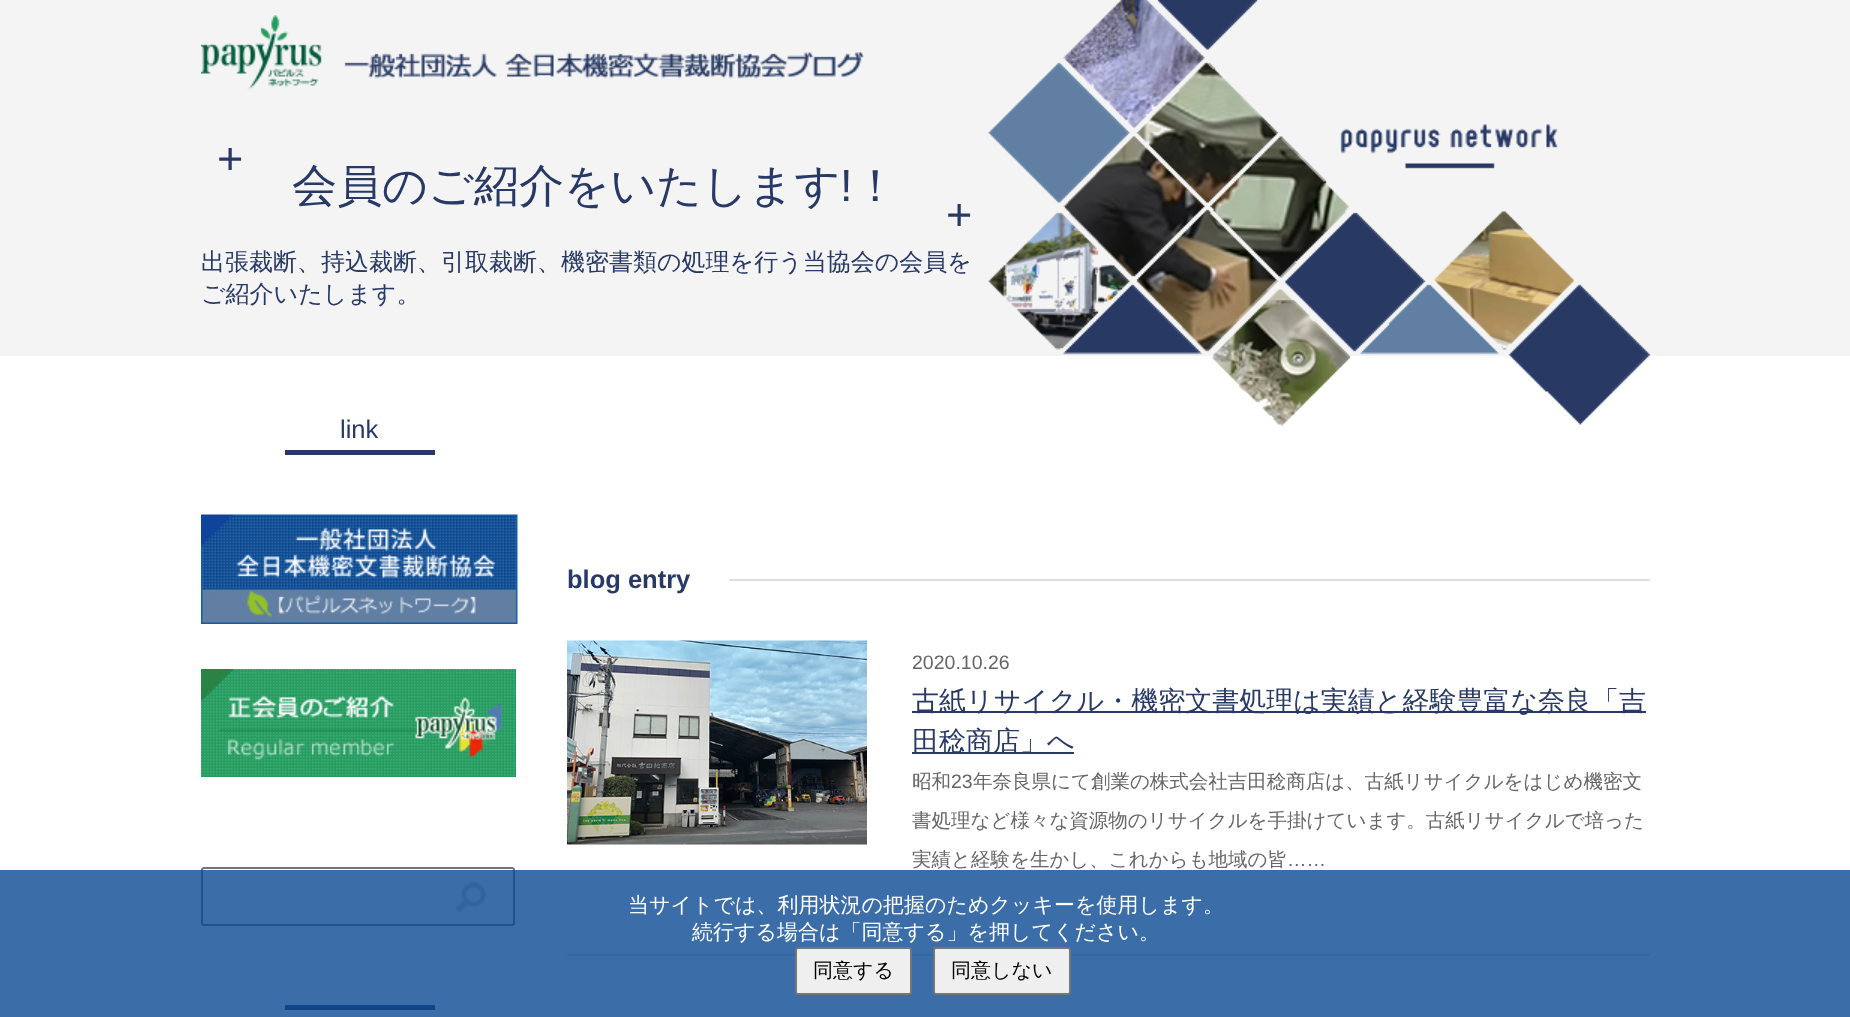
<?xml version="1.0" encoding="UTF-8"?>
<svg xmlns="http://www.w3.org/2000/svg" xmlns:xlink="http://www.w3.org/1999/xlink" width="1850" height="1017">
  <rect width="100%" height="100%" fill="#ffffff" />
  <rect width="1850" height="356" fill="#f4f4f4" />
  <image x="201" y="15" width="663" height="75" xlink:href="image1.png" />
  <image x="988" y="0" width="662" height="426" xlink:href="image2.png" />
  <rect x="285" y="450" width="150" height="5" fill="#273964" />
  <image x="201" y="514" width="317" height="110" xlink:href="image3.png" />
  <image x="201" y="669" width="315" height="108" xlink:href="image4.png" />
  <rect x="202" y="868" width="312" height="57" rx="2" fill="none" stroke="#767676" stroke-width="2" />
  <image x="456" y="882" width="30" height="30" xlink:href="image5.png" />
  <rect x="285" y="1005" width="150" height="5" fill="#273964" />
  <rect x="729" y="579" width="921" height="2" fill="#dedede" />
  <rect x="567" y="954" width="1083" height="2" fill="#dedede" />
  <image x="567" y="640" width="300" height="205" xlink:href="image6.png" />
  <rect x="912" y="711" width="734" height="2" fill="#273964" />
  <rect x="912" y="752" width="162" height="2" fill="#273964" />
  <rect y="870" width="1850" height="147" fill="#0a4a92" fill-opacity="0.8" />
  <rect x="796" y="948" width="115" height="46" rx="2" fill="#efefef" stroke="#767676" stroke-width="2" />
  <rect x="934" y="948" width="136" height="46" rx="2" fill="#efefef" stroke="#767676" stroke-width="2" />
  <text x="217" y="174" style="font-family: Liberation Sans; font-size: 45px; fill: #273964">+</text>
  <text x="292" y="201" style="font-family: WenQuanYi Zen Hei; font-size: 45px; font-weight: 500; fill: #273964">会員のご紹介をいたします</text>
  <text x="840" y="201" style="font-family: Liberation Sans; font-size: 45px; fill: #273964">!</text>
  <text x="853" y="201" style="font-family: WenQuanYi Zen Hei; font-size: 45px; font-weight: 500; fill: #273964">！</text>
  <text x="946" y="230" style="font-family: Liberation Sans; font-size: 45px; fill: #273964">+</text>
  <text x="201" y="270" style="font-family: WenQuanYi Zen Hei; font-size: 24px; font-weight: 500; fill: #273964">出張裁断、持込裁断、引取裁断、機密書類の処理を行う当協会の会員を</text>
  <text x="201" y="302" style="font-family: WenQuanYi Zen Hei; font-size: 24px; font-weight: 500; fill: #273964">ご紹介いたします。</text>
  <text x="340" y="438" style="font-family: Liberation Sans; font-size: 25.5px; fill: #273964">link</text>
  <text x="567" y="588" style="font-family: Liberation Sans; font-size: 25.5px; font-weight: bold; fill: #273964">blog entry</text>
  <text x="912" y="669" style="font-family: Liberation Sans; font-size: 19.5px; fill: #666666">2020.10.26</text>
  <text x="912" y="710" style="font-family: WenQuanYi Zen Hei; font-size: 27px; font-weight: 500; fill: #273964">古紙リサイクル・機密文書処理は実績と経験豊富な奈良「吉</text>
  <text x="912" y="750" style="font-family: WenQuanYi Zen Hei; font-size: 27px; font-weight: 500; fill: #273964">田稔商店」へ</text>
  <text x="912" y="788" style="font-family: WenQuanYi Zen Hei; font-size: 19.5px; font-weight: 500; fill: #666666">昭和</text>
  <text x="951" y="788" style="font-family: Liberation Sans; font-size: 19.5px; fill: #666666">23</text>
  <text x="973" y="788" style="font-family: WenQuanYi Zen Hei; font-size: 19.5px; font-weight: 500; fill: #666666">年奈良県にて創業の株式会社吉田稔商店は、古紙リサイクルをはじめ機密文</text>
  <text x="912" y="827" style="font-family: WenQuanYi Zen Hei; font-size: 19.5px; font-weight: 500; fill: #666666">書処理など様々な資源物のリサイクルを手掛けています。古紙リサイクルで培った</text>
  <text x="912" y="866" style="font-family: WenQuanYi Zen Hei; font-size: 19.5px; font-weight: 500; fill: #666666">実績と経験を生かし、これからも地域の皆</text>
  <text x="1287" y="866" style="font-family: Liberation Sans; font-size: 19.5px; fill: #666666">……</text>
  <text x="628" y="912" style="font-family: WenQuanYi Zen Hei; font-size: 21px; font-weight: 500; fill: #ffffff">当サイトでは、利用状況の把握のためクッキーを使用します。</text>
  <text x="692" y="939" style="font-family: WenQuanYi Zen Hei; font-size: 21px; font-weight: 500; fill: #ffffff">続行する場合は「同意する」を押してください。</text>
  <text x="813" y="977" style="font-family: WenQuanYi Zen Hei; font-size: 20px; font-weight: 500; fill: #000000">同意する</text>
  <text x="951" y="977" style="font-family: WenQuanYi Zen Hei; font-size: 20px; font-weight: 500; fill: #000000">同意しない</text>
</svg>
